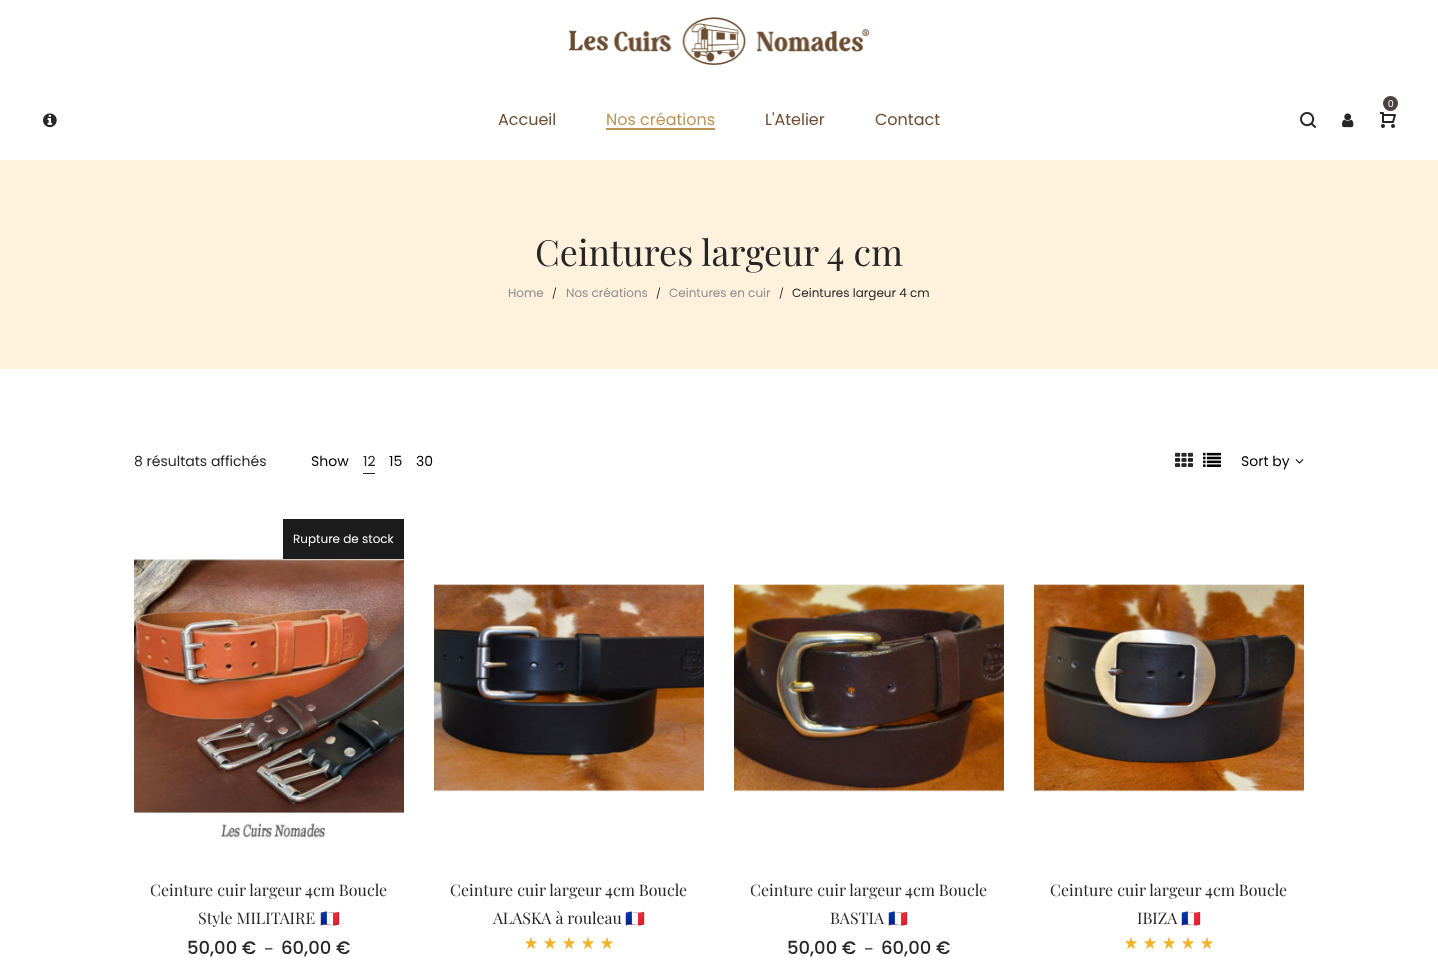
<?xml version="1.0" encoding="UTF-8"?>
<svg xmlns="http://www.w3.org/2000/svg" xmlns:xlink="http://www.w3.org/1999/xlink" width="1438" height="973">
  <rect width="100%" height="100%" fill="#ffffff" />
  <image x="569" y="17" width="300" height="48" xlink:href="image1.png" />
  <circle cx="1390.5" cy="103.5" r="7.5" fill="#4a4141" />
  <image x="1380" y="112" width="16" height="16" xlink:href="image2.png" />
  <image x="1300" y="112" width="16" height="16" xlink:href="image3.png" />
  <image x="1342" y="113" width="12" height="15" xlink:href="image4.png" />
  <image x="43" y="113" width="14" height="15" xlink:href="image5.png" />
  <rect x="606" y="128" width="109" height="2" fill="#bb9457" />
  <rect y="160" width="1438" height="209" fill="#fff2dd" />
  <rect x="363" y="473" width="12" height="1" fill="#262626" />
  <image x="1175" y="452" width="18" height="15" xlink:href="image6.png" />
  <image x="1203" y="452" width="18" height="15" xlink:href="image7.png" />
  <image x="1295" y="459" width="9" height="5" xlink:href="image8.png" />
  <rect x="283" y="519" width="121" height="40" fill="#1c1c1c" />
  <image x="134" y="559" width="270" height="280" xlink:href="image9.png" />
  <image x="434" y="584" width="270" height="208" xlink:href="image10.png" />
  <image x="525" y="937" width="88" height="12" xlink:href="image11.png" />
  <image x="525" y="937" width="88" height="12" xlink:href="image12.png" />
  <image x="734" y="584" width="270" height="208" xlink:href="image13.png" />
  <image x="1034" y="584" width="270" height="208" xlink:href="image14.png" />
  <image x="1125" y="937" width="88" height="12" xlink:href="image11.png" />
  <image x="1125" y="937" width="88" height="12" xlink:href="image12.png" />
  <text x="1388" y="107" style="font-family: Liberation Sans; font-size: 10px; fill: #ffffff">0</text>
  <text x="498" y="125" style="font-family: Poppins; font-size: 16px; fill: #6b4c30">Accueil</text>
  <text x="606" y="125" style="font-family: Poppins; font-size: 16px; fill: #bb9457">Nos créations</text>
  <text x="765" y="125" style="font-family: Poppins; font-size: 16px; fill: #6b4c30">L'Atelier</text>
  <text x="875" y="125" style="font-family: Poppins; font-size: 16px; fill: #6b4c30">Contact</text>
  <text x="535" y="266" style="font-family: Playfair Display; font-size: 36px; fill: #262626">Ceintures largeur 4 cm</text>
  <text x="508" y="297" style="font-family: Poppins; font-size: 12px; fill: #8d8d8d">Home</text>
  <text x="552" y="297" style="font-family: Poppins; font-size: 10px; fill: #262626">/</text>
  <text x="566" y="297" style="font-family: Poppins; font-size: 12px; fill: #8d8d8d">Nos créations</text>
  <text x="656" y="297" style="font-family: Poppins; font-size: 10px; fill: #262626">/</text>
  <text x="669" y="297" style="font-family: Poppins; font-size: 12px; fill: #8d8d8d">Ceintures en cuir</text>
  <text x="779" y="297" style="font-family: Poppins; font-size: 10px; fill: #262626">/</text>
  <text x="792" y="297" style="font-family: Poppins; font-size: 12px; fill: #262626">Ceintures largeur 4 cm</text>
  <text x="134" y="466" style="font-family: Poppins; font-size: 14px; fill: #262626">8 résultats affichés</text>
  <text x="311" y="466" style="font-family: Poppins; font-size: 14px; fill: #000000">Show</text>
  <text x="363" y="466" style="font-family: Poppins; font-size: 14px; fill: #262626">12</text>
  <text x="389" y="466" style="font-family: Poppins; font-size: 14px; fill: #000000">15</text>
  <text x="416" y="466" style="font-family: Poppins; font-size: 14px; fill: #000000">30</text>
  <text x="1241" y="466" style="font-family: Poppins; font-size: 14px; fill: #000000">Sort by</text>
  <text x="293" y="543" style="font-family: Poppins; font-size: 12px; fill: #ffffff">Rupture de stock</text>
  <text x="150" y="896" style="font-family: Playfair Display; font-size: 16px; fill: #262626">Ceinture cuir largeur 4cm Boucle</text>
  <text x="198" y="924" style="font-family: Playfair Display; font-size: 16px; fill: #262626">Style MILITAIRE</text>
  <text x="320" y="924" style="font-family: Noto Color Emoji; font-size: 16px; fill: #262626">🇫🇷</text>
  <text x="187" y="954" style="font-family: Poppins; font-size: 18px; font-weight: 500; fill: #262626">50,00 €</text>
  <text x="264" y="954" style="font-family: Poppins; font-size: 14px; fill: #000000">–</text>
  <text x="281" y="954" style="font-family: Poppins; font-size: 18px; font-weight: 500; fill: #262626">60,00 €</text>
  <text x="450" y="896" style="font-family: Playfair Display; font-size: 16px; fill: #262626">Ceinture cuir largeur 4cm Boucle</text>
  <text x="493" y="924" style="font-family: Playfair Display; font-size: 16px; fill: #262626">ALASKA à rouleau</text>
  <text x="625" y="924" style="font-family: Noto Color Emoji; font-size: 16px; fill: #262626">🇫🇷</text>
  <text x="750" y="896" style="font-family: Playfair Display; font-size: 16px; fill: #262626">Ceinture cuir largeur 4cm Boucle</text>
  <text x="830" y="924" style="font-family: Playfair Display; font-size: 16px; fill: #262626">BASTIA</text>
  <text x="888" y="924" style="font-family: Noto Color Emoji; font-size: 16px; fill: #262626">🇫🇷</text>
  <text x="787" y="954" style="font-family: Poppins; font-size: 18px; font-weight: 500; fill: #262626">50,00 €</text>
  <text x="864" y="954" style="font-family: Poppins; font-size: 14px; fill: #000000">–</text>
  <text x="881" y="954" style="font-family: Poppins; font-size: 18px; font-weight: 500; fill: #262626">60,00 €</text>
  <text x="1050" y="896" style="font-family: Playfair Display; font-size: 16px; fill: #262626">Ceinture cuir largeur 4cm Boucle</text>
  <text x="1137" y="924" style="font-family: Playfair Display; font-size: 16px; fill: #262626">IBIZA</text>
  <text x="1181" y="924" style="font-family: Noto Color Emoji; font-size: 16px; fill: #262626">🇫🇷</text>
</svg>
